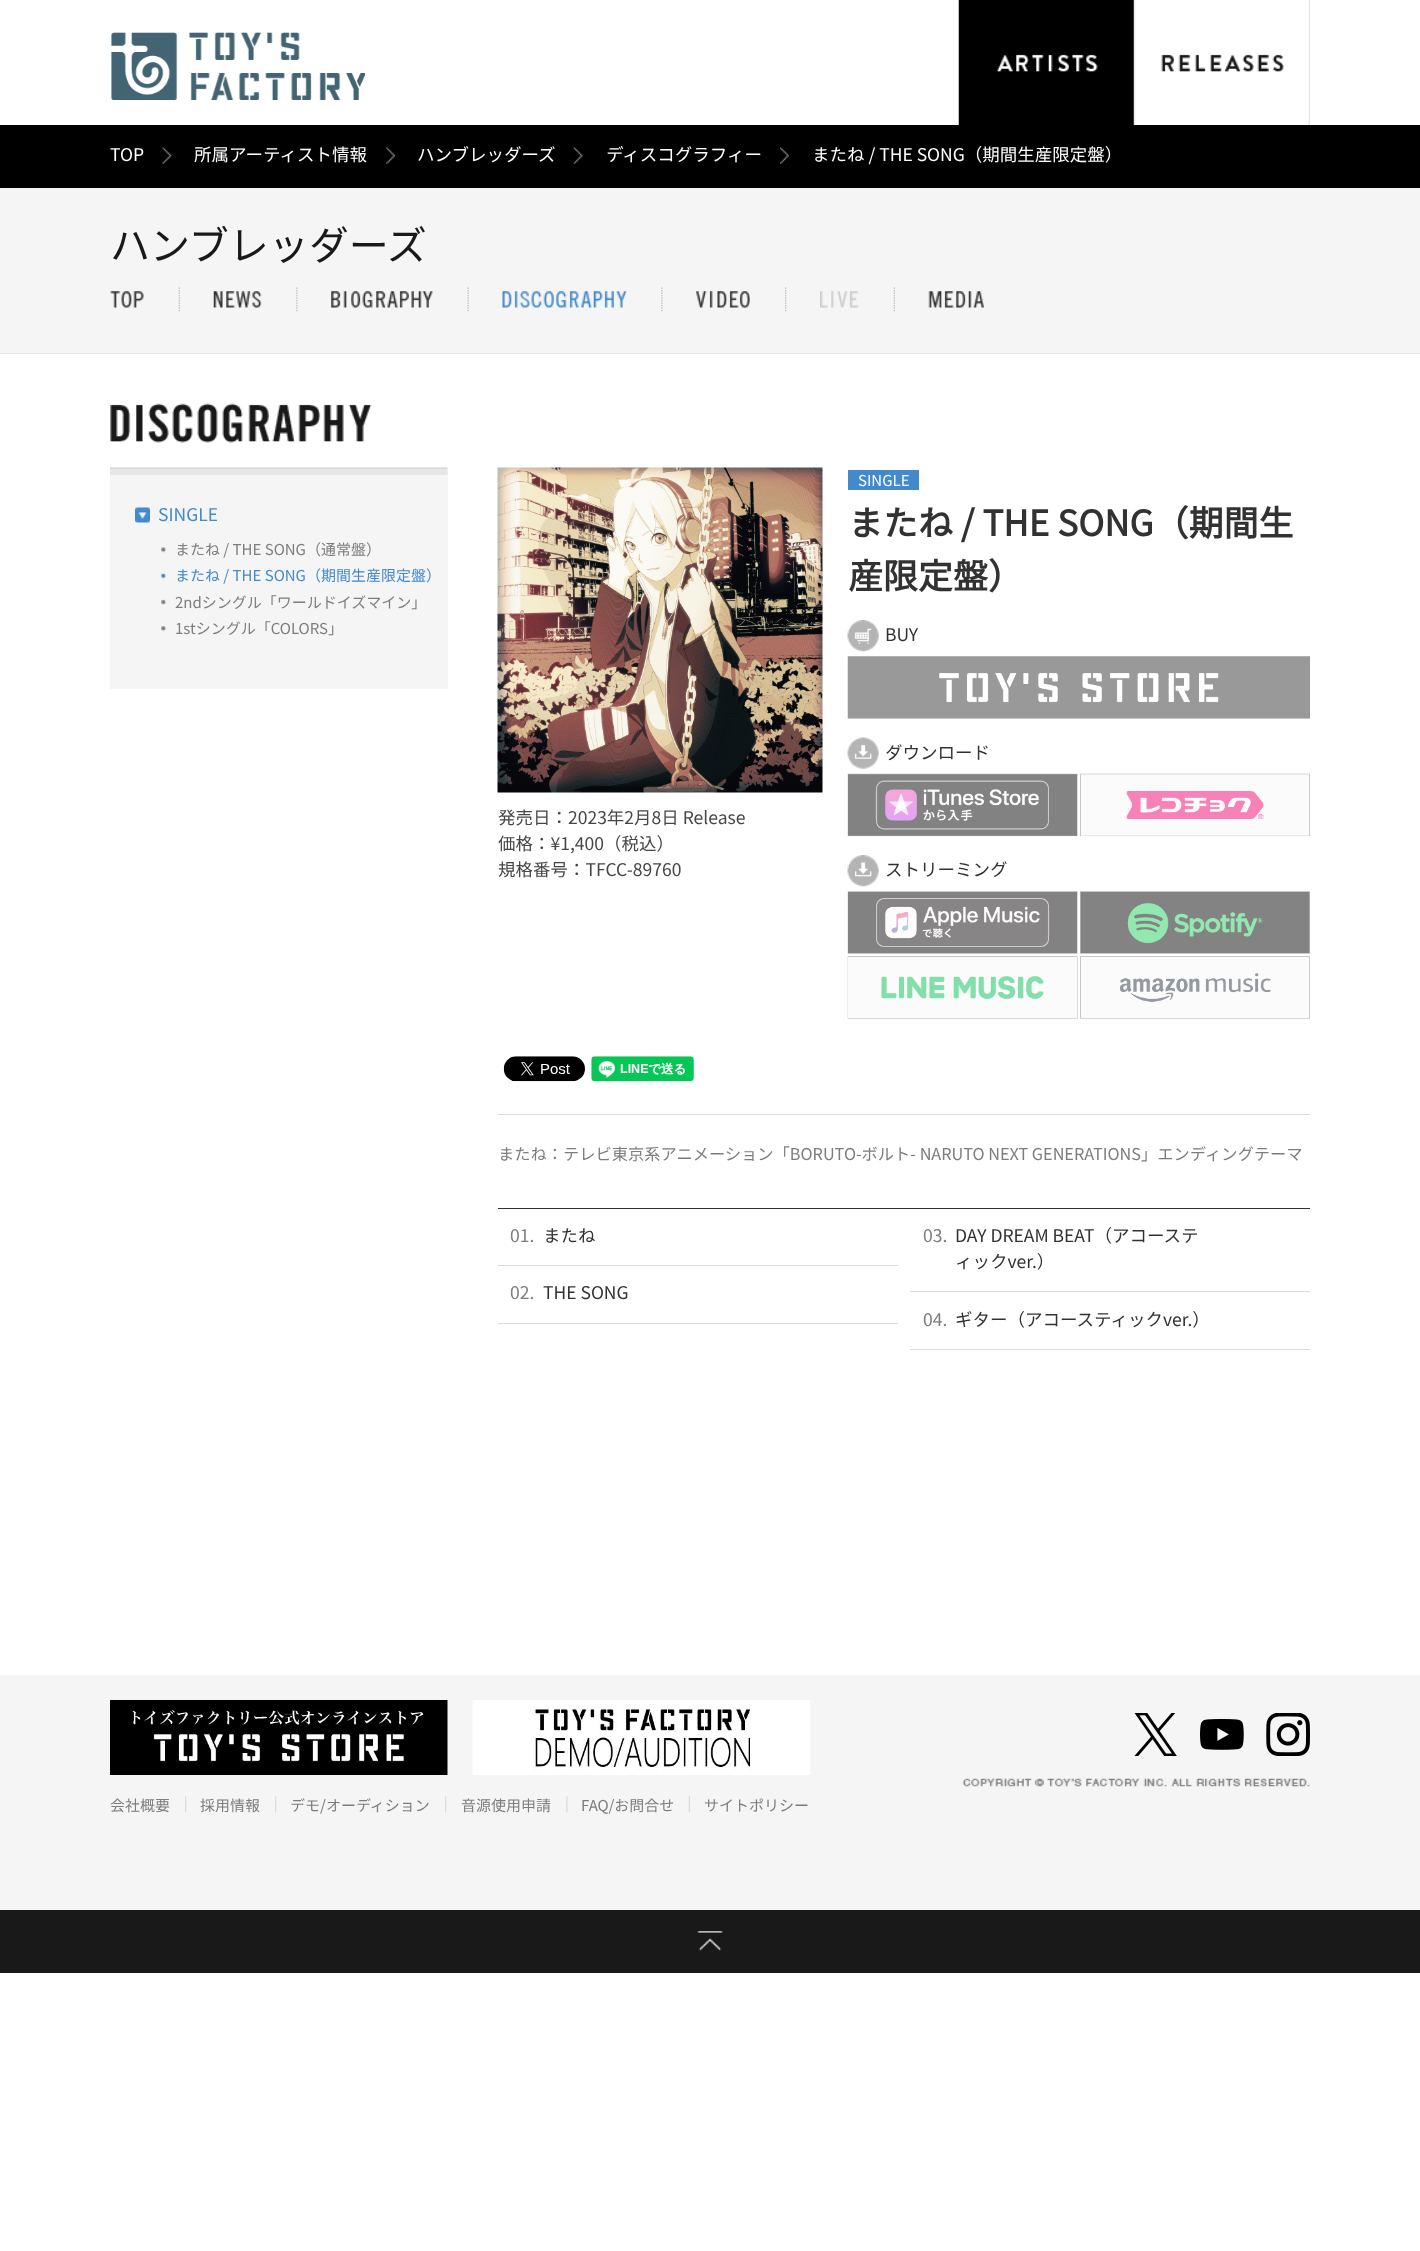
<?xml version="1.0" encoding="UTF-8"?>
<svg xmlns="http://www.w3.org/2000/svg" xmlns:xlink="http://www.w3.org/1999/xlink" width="1420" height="2251">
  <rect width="100%" height="100%" fill="#ffffff" />
  <image x="110" y="32" width="255" height="68" xlink:href="image1.png" />
  <image x="958" y="0" width="176" height="125" xlink:href="image2.png" />
  <image x="1133" y="0" width="177" height="125" xlink:href="image3.png" />
  <rect y="125" width="1420" height="63" fill="#000000" />
  <image x="162" y="147" width="10" height="17" xlink:href="image4.png" />
  <image x="386" y="147" width="9" height="17" xlink:href="image5.png" />
  <image x="573" y="147" width="10" height="17" xlink:href="image6.png" />
  <image x="780" y="147" width="9" height="17" xlink:href="image7.png" />
  <rect y="188" width="1420" height="165" fill="#f5f5f5" />
  <rect y="353" width="1420" height="1" fill="#e6e6e6" />
  <image x="110" y="291" width="34" height="17" xlink:href="image8.png" />
  <image x="178" y="287" width="2" height="25" xlink:href="image9.png" />
  <image x="213" y="291" width="49" height="17" xlink:href="image10.png" />
  <image x="296" y="287" width="2" height="25" xlink:href="image11.png" />
  <image x="331" y="291" width="102" height="17" xlink:href="image12.png" />
  <image x="467" y="287" width="2" height="25" xlink:href="image13.png" />
  <image x="502" y="291" width="125" height="17" xlink:href="image14.png" />
  <image x="661" y="287" width="2" height="25" xlink:href="image11.png" />
  <image x="696" y="291" width="54" height="17" xlink:href="image15.png" />
  <image x="785" y="287" width="2" height="25" xlink:href="image16.png" />
  <image x="820" y="291" width="39" height="17" xlink:href="image17.png" />
  <image x="893" y="287" width="2" height="25" xlink:href="image9.png" />
  <image x="928" y="291" width="56" height="17" xlink:href="image18.png" />
  <image x="110" y="403" width="262" height="40" xlink:href="image19.png" />
  <rect x="110" y="468" width="338" height="221" fill="#f5f5f5" />
  <image x="110" y="467" width="338" height="8" xlink:href="image20.png" />
  <image x="135" y="507" width="15" height="16" xlink:href="image21.png" />
  <image x="161" y="547" width="6" height="6" xlink:href="image22.png" />
  <image x="161" y="573" width="6" height="6" xlink:href="image23.png" />
  <image x="161" y="599" width="6" height="6" xlink:href="image24.png" />
  <image x="161" y="626" width="6" height="6" xlink:href="image25.png" />
  <image x="497" y="467" width="326" height="326" xlink:href="image26.png" />
  <rect x="848" y="470" width="71" height="20" fill="#428acb" />
  <image x="847" y="620" width="32" height="32" xlink:href="image27.png" />
  <image x="847" y="656" width="463" height="63" xlink:href="image28.png" />
  <image x="847" y="737" width="32" height="32" xlink:href="image29.png" />
  <image x="847" y="773" width="231" height="64" xlink:href="image30.png" />
  <image x="1080" y="773" width="230" height="64" xlink:href="image31.png" />
  <image x="847" y="855" width="32" height="32" xlink:href="image32.png" />
  <image x="847" y="891" width="231" height="63" xlink:href="image33.png" />
  <image x="1080" y="891" width="230" height="63" xlink:href="image34.png" />
  <image x="847" y="956" width="231" height="63" xlink:href="image35.png" />
  <image x="1080" y="956" width="230" height="63" xlink:href="image36.png" />
  <rect x="498" y="1114" width="812" height="1" fill="#dcdcdc" />
  <image x="503" y="1056" width="82" height="26" xlink:href="image37.png" />
  <image x="591" y="1056" width="103" height="26" xlink:href="image38.png" />
  <rect x="498" y="1208" width="812" height="1" fill="#323232" />
  <rect x="498" y="1265" width="400" height="1" fill="#dcdcdc" />
  <rect x="498" y="1323" width="400" height="1" fill="#dcdcdc" />
  <rect x="910" y="1291" width="400" height="1" fill="#dcdcdc" />
  <rect x="910" y="1349" width="400" height="1" fill="#dcdcdc" />
  <rect y="1675" width="1420" height="235" fill="#f5f5f5" />
  <image x="1134" y="1713" width="43" height="43" xlink:href="image39.png" />
  <image x="1200" y="1718" width="44" height="32" xlink:href="image40.png" />
  <image x="1266" y="1713" width="44" height="43" xlink:href="image41.png" />
  <image x="962" y="1778" width="348" height="9" xlink:href="image42.png" />
  <image x="110" y="1700" width="338" height="75" xlink:href="image43.png" />
  <image x="472" y="1700" width="338" height="75" xlink:href="image44.png" />
  <image x="185" y="1796" width="2" height="17" xlink:href="image45.png" />
  <image x="275" y="1796" width="2" height="17" xlink:href="image45.png" />
  <image x="445" y="1796" width="2" height="17" xlink:href="image45.png" />
  <image x="566" y="1796" width="2" height="17" xlink:href="image46.png" />
  <image x="688" y="1796" width="2" height="17" xlink:href="image47.png" />
  <rect y="1910" width="1420" height="63" fill="#191919" />
  <image x="697" y="1931" width="26" height="20" xlink:href="image48.png" />
  <text x="110" y="161" style="font-family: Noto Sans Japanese; font-size: 17.5px; fill: #ffffff">TOP</text>
  <text x="194" y="161" style="font-family: Noto Sans Japanese; font-size: 17.5px; fill: #ffffff">所属アーティスト情報</text>
  <text x="417" y="161" style="font-family: Noto Sans Japanese; font-size: 17.5px; fill: #ffffff">ハンブレッダーズ</text>
  <text x="606" y="161" style="font-family: Noto Sans Japanese; font-size: 17.5px; fill: #ffffff">ディスコグラフィー</text>
  <text x="812" y="161" style="font-family: Noto Sans Japanese; font-size: 17.5px; fill: #ffffff">またね / THE SONG（期間生産限定盤）</text>
  <text x="110" y="260" style="font-family: Noto Sans Japanese; font-size: 40px; fill: #191919">ハンブレッダーズ</text>
  <text x="158" y="521" style="font-family: Noto Sans Japanese; font-size: 17.5px; fill: #428acb">SINGLE</text>
  <text x="175" y="555" style="font-family: Noto Sans Japanese; font-size: 15px; fill: #7d7d7d">またね / THE SONG（通常盤）</text>
  <text x="175" y="581" style="font-family: Noto Sans Japanese; font-size: 15px; fill: #428acb">またね / THE SONG（期間生産限定盤）</text>
  <text x="175" y="608" style="font-family: Noto Sans Japanese; font-size: 15px; fill: #7d7d7d">2ndシングル「ワールドイズマイン」</text>
  <text x="175" y="634" style="font-family: Noto Sans Japanese; font-size: 15px; fill: #7d7d7d">1stシングル「COLORS」</text>
  <text x="498" y="824" style="font-family: Noto Sans Japanese; font-size: 17.5px; fill: #464646">発売日：2023年2月8日 Release</text>
  <text x="498" y="850" style="font-family: Noto Sans Japanese; font-size: 17.5px; fill: #464646">価格：¥1,400（税込）</text>
  <text x="498" y="876" style="font-family: Noto Sans Japanese; font-size: 17.5px; fill: #464646">規格番号：TFCC-89760</text>
  <text x="858" y="486" style="font-family: Noto Sans Japanese; font-size: 15px; fill: #ffffff">SINGLE</text>
  <text x="848" y="536" style="font-family: Noto Sans Japanese; font-size: 35px; font-weight: bold; fill: #323232">またね / THE SONG（期間生</text>
  <text x="848" y="589" style="font-family: Noto Sans Japanese; font-size: 35px; font-weight: bold; fill: #323232">産限定盤）</text>
  <text x="885" y="641" style="font-family: Noto Sans Japanese; font-size: 17.5px; fill: #323232">BUY</text>
  <text x="885" y="759" style="font-family: Noto Sans Japanese; font-size: 17.5px; fill: #323232">ダウンロード</text>
  <text x="885" y="876" style="font-family: Noto Sans Japanese; font-size: 17.5px; fill: #323232">ストリーミング</text>
  <text x="498" y="1160" style="font-family: Noto Sans Japanese; font-size: 16.25px; fill: #7d7d7d">またね：テレビ東京系アニメーション「BORUTO-ボルト- NARUTO NEXT GENERATIONS」エンディングテーマ</text>
  <text x="510" y="1242" style="font-family: Noto Sans Japanese; font-size: 17.5px; fill: #7d7d7d">01.</text>
  <text x="543" y="1242" style="font-family: Noto Sans Japanese; font-size: 17.5px; fill: #323232">またね</text>
  <text x="510" y="1299" style="font-family: Noto Sans Japanese; font-size: 17.5px; fill: #7d7d7d">02.</text>
  <text x="543" y="1299" style="font-family: Noto Sans Japanese; font-size: 17.5px; fill: #323232">THE SONG</text>
  <text x="923" y="1242" style="font-family: Noto Sans Japanese; font-size: 17.5px; fill: #7d7d7d">03.</text>
  <text x="955" y="1242" style="font-family: Noto Sans Japanese; font-size: 17.5px; fill: #323232">DAY DREAM BEAT（アコーステ</text>
  <text x="955" y="1268" style="font-family: Noto Sans Japanese; font-size: 17.5px; fill: #323232">ィックver.）</text>
  <text x="923" y="1326" style="font-family: Noto Sans Japanese; font-size: 17.5px; fill: #7d7d7d">04.</text>
  <text x="955" y="1326" style="font-family: Noto Sans Japanese; font-size: 17.5px; fill: #323232">ギター（アコースティックver.）</text>
  <text x="110" y="1811" style="font-family: Noto Sans Japanese; font-size: 15px; fill: #7d7d7d">会社概要</text>
  <text x="200" y="1811" style="font-family: Noto Sans Japanese; font-size: 15px; fill: #7d7d7d">採用情報</text>
  <text x="290" y="1811" style="font-family: Noto Sans Japanese; font-size: 15px; fill: #7d7d7d">デモ/オーディション</text>
  <text x="461" y="1811" style="font-family: Noto Sans Japanese; font-size: 15px; fill: #7d7d7d">音源使用申請</text>
  <text x="581" y="1811" style="font-family: Noto Sans Japanese; font-size: 15px; fill: #7d7d7d">FAQ/お問合せ</text>
  <text x="704" y="1811" style="font-family: Noto Sans Japanese; font-size: 15px; fill: #7d7d7d">サイトポリシー</text>
</svg>
